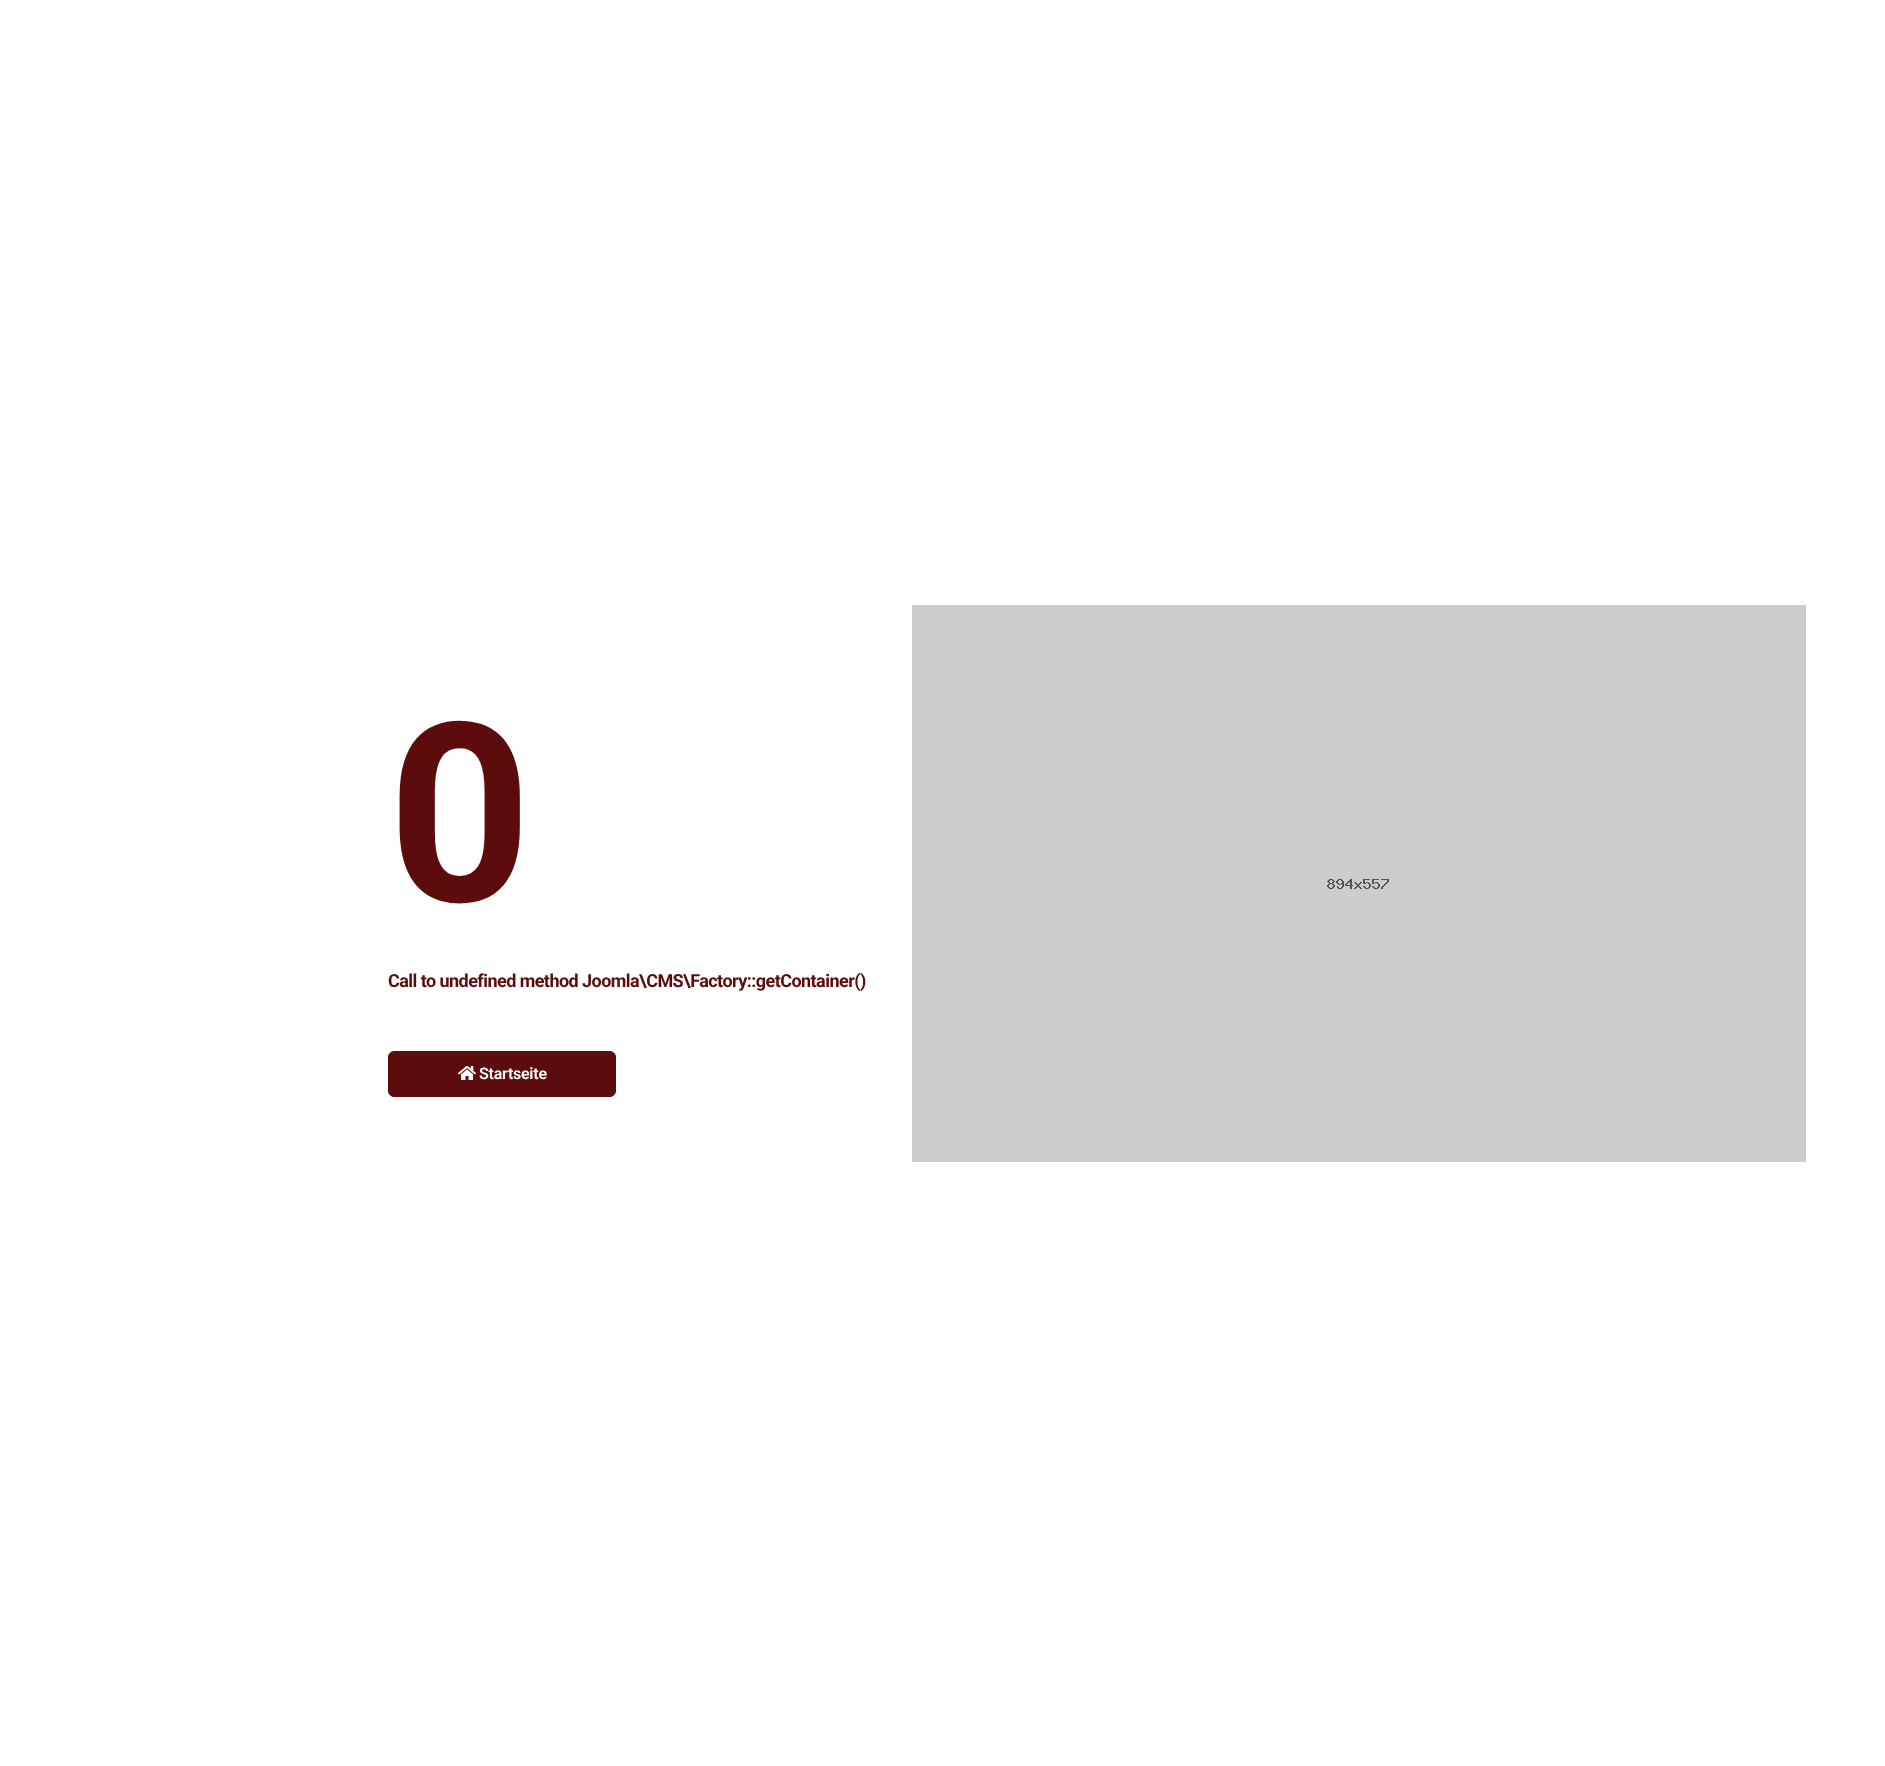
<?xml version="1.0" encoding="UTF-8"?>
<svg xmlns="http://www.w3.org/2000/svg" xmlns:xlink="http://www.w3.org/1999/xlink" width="1885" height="1766">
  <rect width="100%" height="100%" fill="#ffffff" />
  <image x="912" y="605" width="894" height="557" xlink:href="image1.png" />
  <rect x="388.5" y="1051.5" width="227" height="45" rx="5.5" fill="#5c0c0c" stroke="#5c0c0c" />
  <image x="458" y="1066" width="18" height="14" xlink:href="image2.png" />
  <text x="388" y="901" style="font-family: Roboto; font-size: 250px; font-weight: bold; letter-spacing: -8px; fill: #5c0c0c">0</text>
  <text x="388" y="987" style="font-family: Roboto; font-size: 18px; font-weight: bold; letter-spacing: -0.55px; fill: #5c0c0c">Call to undefined method Joomla\CMS\Factory::getContainer()</text>
  <text x="479" y="1079" style="font-family: Roboto; font-size: 16px; font-weight: 600; letter-spacing: -0.25px; fill: #ffffff">Startseite</text>
</svg>
